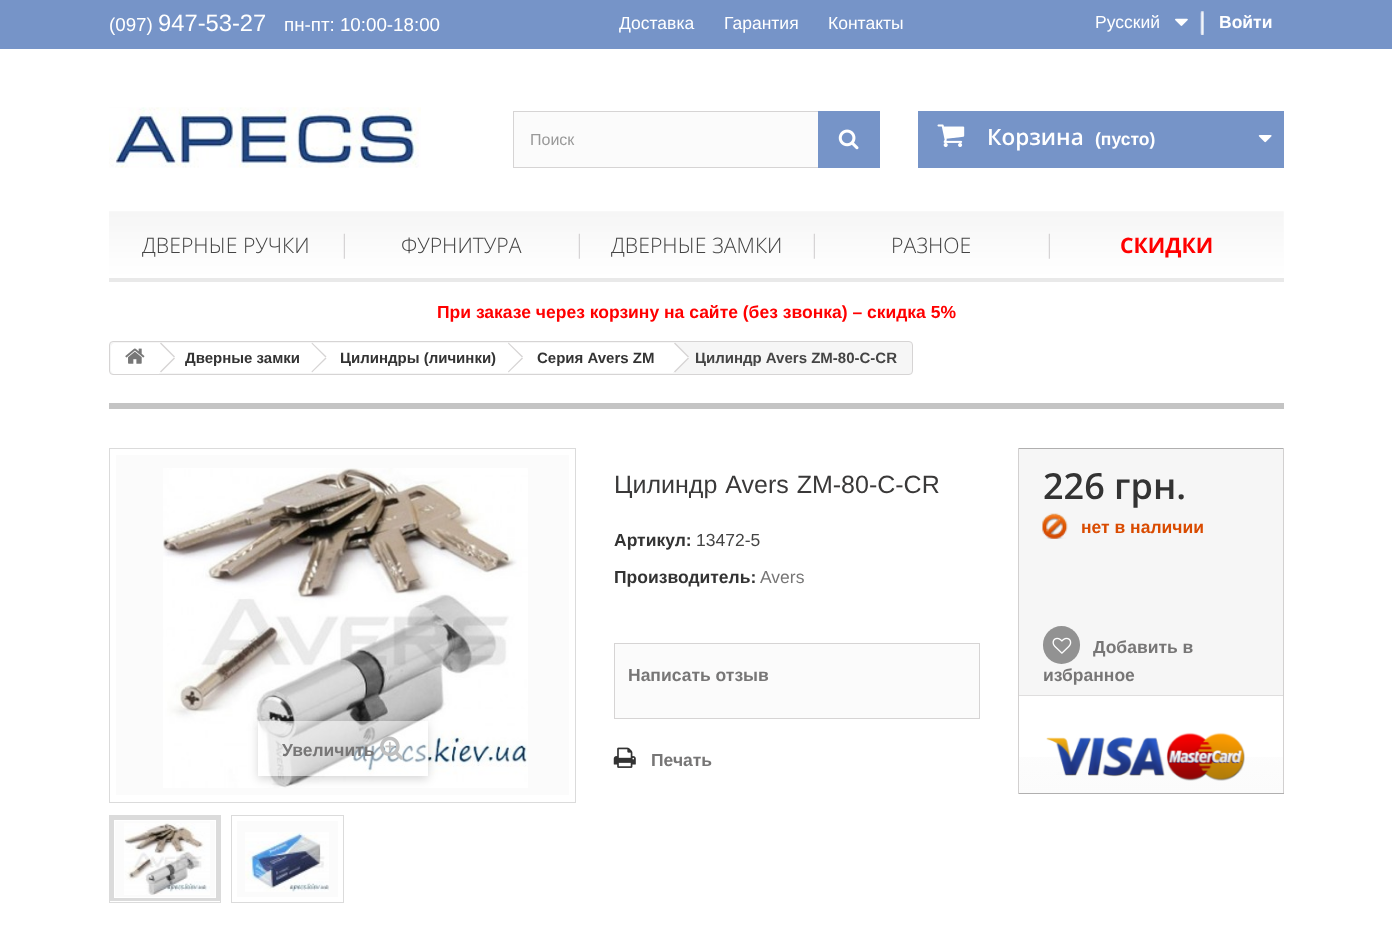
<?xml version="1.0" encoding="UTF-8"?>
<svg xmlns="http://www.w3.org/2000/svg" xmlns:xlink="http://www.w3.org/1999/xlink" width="1392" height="928">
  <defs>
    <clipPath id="clip1"><path d="M 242 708 h 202 v 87 h -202 z m 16 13 h 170 v 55 h -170 z" clip-rule="evenodd" /></clipPath>
    <linearGradient id="g1" gradientUnits="userSpaceOnUse" x1="1151" y1="696" x2="1151" y2="793"><stop offset="0" stop-color="#ffffff" /><stop offset="1" stop-color="#fbfbfb" /></linearGradient>
  </defs>
  <rect width="100%" height="100%" fill="#ffffff" />
  <rect width="1392" height="49" fill="#7694c8" />
  <image x="1175" y="18" width="13" height="8" xlink:href="image1.png" />
  <image x="1200" y="11" width="4" height="24" xlink:href="image2.png" />
  <image x="109" y="107" width="312" height="61" xlink:href="image3.png" />
  <rect x="514" y="112" width="304" height="55" fill="#fbfbfb" />
  <rect x="513.5" y="111.5" width="366" height="56" fill="none" stroke="#d6d4d4" />
  <rect x="818" y="111" width="62" height="57" fill="#7694c8" />
  <image x="838" y="129" width="21" height="21" xlink:href="image4.png" />
  <rect x="918" y="111" width="366" height="57" fill="#7694c8" />
  <image x="937" y="124" width="28" height="23" xlink:href="image5.png" />
  <image x="1258" y="135" width="14" height="8" xlink:href="image6.png" />
  <image x="109" y="211" width="1175" height="67" xlink:href="image7.png" />
  <rect x="109" y="278" width="1175" height="4" fill="#e9e9e9" />
  <image x="343" y="233" width="2" height="26" xlink:href="image8.png" />
  <image x="578" y="233" width="2" height="26" xlink:href="image8.png" />
  <image x="813" y="233" width="2" height="26" xlink:href="image8.png" />
  <image x="1048" y="233" width="2" height="26" xlink:href="image8.png" />
  <rect x="109.5" y="341.5" width="803" height="33" rx="3.5" fill="#f6f6f6" stroke="#d6d4d4" />
  <path d="M 115 343 h 44 v 31 h -44 c -2 0 -4 -2 -4 -4 v -23 c 0 -2 2 -4 4 -4 z" fill="#ffffff" />
  <image x="125" y="348" width="20" height="16" xlink:href="image9.png" />
  <rect x="159" y="343" width="154" height="30" fill="#ffffff" />
  <path d="M 161 342.5 l 14 14 l -1 1 l -14 -14 z" fill="#d6d4d4" />
  <path d="M 174 357.5 l 1 1 l -14 14 l -1 -1 z" fill="#d6d4d4" />
  <path d="M 321.5 343.5 c -2.5 -2.5 -6.5 3 -7.5 4 l -6.5 6 c -3.5 3.5 -3.5 4.5 0 8 l 8.5 8 c 3.5 3.5 4 3.5 7.5 0 l 6.5 -6 c 2 -2 6 -4.5 4 -8 z" fill="#ffffff" />
  <rect x="313" y="343" width="196" height="30" fill="#ffffff" />
  <path d="M 312 342.5 l 14.5 14 l -1 1 l -14 -14 z" fill="#d6d4d4" />
  <path d="M 325.5 357.5 l 1 1 l -14.5 14 l -0.5 -1 z" fill="#d6d4d4" />
  <path d="M 518 343.5 c -0.5 -0.5 -1 -0.5 -2 -0.5 c -1.5 0 -2 1 -3.5 2.5 l -8.5 8 c -3.5 3.5 -3.5 4.5 0 8 l 4 4 c 8.5 8 6.5 9.5 14 2 l 4.5 -4 c 1.5 -1.5 7 -5 4 -8 z" fill="#ffffff" />
  <rect x="509" y="343" width="164" height="30" fill="#ffffff" />
  <path d="M 508.5 342.5 l 14.5 14 l -1 1 l -14 -14 z" fill="#d6d4d4" />
  <path d="M 522 357.5 l 1 1 l -14.5 14 l -0.5 -1 z" fill="#d6d4d4" />
  <path d="M 676 343.5 c -2.5 -2.5 -6.5 3 -7.5 4 l -4.5 4 c -1.5 1.5 -6 4.5 -4.5 7.5 l 11 10.5 c 1 1 3 3.5 5 2.5 l 8.5 -8.5 c 1.5 -1.5 7 -5 4 -8 z" fill="#ffffff" />
  <path d="M 675 342.5 l 14 14 l -1 1 l -14 -14 z" fill="#d6d4d4" />
  <path d="M 688 357.5 l 1 1 l -14 14 l -1 -1 z" fill="#d6d4d4" />
  <rect x="109" y="403" width="1175" height="6" fill="#c4c4c4" />
  <rect x="109.5" y="448.5" width="466" height="354" fill="none" stroke="#dbdbdb" />
  <rect x="116" y="455" width="453" height="340" fill="#fbfbfb" />
  <image x="163" y="468" width="365" height="320" xlink:href="image10.png" />
  <g clip-path="url(#clip1)">
    <rect x="258" y="724" width="170" height="55" fill="#000000" fill-opacity="0.16" filter="blur(5px)" />
  </g>
  <rect x="258" y="721" width="170" height="55" fill="#ffffff" fill-opacity="0.5" />
  <image x="380" y="736" width="24" height="24" xlink:href="image11.png" />
  <rect x="109.5" y="815.5" width="111" height="87" fill="none" stroke="#dbdbdb" />
  <rect x="115" y="821" width="100" height="76" fill="#fbfbfb" />
  <rect x="112" y="818" width="106" height="81" fill="none" stroke="#dbdbdb" stroke-width="4" />
  <rect x="114.5" y="820.5" width="101" height="77" fill="none" stroke="#ffffff" />
  <image x="124" y="823" width="86" height="72" xlink:href="image12.png" />
  <rect x="231.5" y="815.5" width="112" height="87" fill="none" stroke="#dbdbdb" />
  <rect x="237" y="821" width="101" height="76" fill="#fbfbfb" />
  <image x="245" y="832" width="84" height="60" xlink:href="image13.png" />
  <rect x="614.5" y="643.5" width="365" height="75" fill="#fbfbfb" stroke="#d6d4d4" />
  <image x="613" y="747" width="23" height="21" xlink:href="image14.png" />
  <rect x="1019" y="449" width="264" height="246" fill="#f6f6f6" />
  <rect x="1018" y="448" width="266" height="1" fill="#b0afaf" />
  <rect x="1283" y="448" width="1" height="346" fill="#d2d0d0" />
  <rect x="1018" y="793" width="266" height="1" fill="#b0afaf" />
  <rect x="1018" y="448" width="1" height="346" fill="#d2d0d0" />
  <image x="1042" y="513" width="26" height="26" xlink:href="image15.png" />
  <rect x="1043" y="626" width="37" height="38" rx="18.5" fill="#929292" />
  <image x="1052" y="637" width="20" height="17" xlink:href="image16.png" />
  <rect x="1019" y="757" width="264" height="36" fill="url(#g1)" />
  <rect x="1019" y="695" width="264" height="1" fill="#dfdede" />
  <image x="1046" y="732" width="199" height="49" xlink:href="image17.png" />
  <text x="109" y="31" style="font-family: Liberation Sans; font-size: 18.75px; fill: #ffffff">(097)</text>
  <text x="158" y="31" style="font-family: Liberation Sans; font-size: 23.75px; fill: #ffffff">947-53-27</text>
  <text x="284" y="31" style="font-family: Liberation Sans; font-size: 18.75px; fill: #ffffff">пн-пт: 10:00-18:00</text>
  <text x="619" y="29" style="font-family: Liberation Sans; font-size: 17.5px; fill: #ffffff">Доставка</text>
  <text x="724" y="29" style="font-family: Liberation Sans; font-size: 17.5px; fill: #ffffff">Гарантия</text>
  <text x="828" y="29" style="font-family: Liberation Sans; font-size: 17.5px; fill: #ffffff">Контакты</text>
  <text x="1095" y="28" style="font-family: Liberation Sans; font-size: 17.5px; fill: #ffffff">Русский</text>
  <text x="1219" y="28" style="font-family: Liberation Sans; font-size: 17.5px; font-weight: bold; fill: #ffffff">Войти</text>
  <text x="530" y="145" style="font-family: Liberation Sans; font-size: 16px; fill: #999999">Поиск</text>
  <text x="987" y="145" style="font-family: Open Sans; font-size: 22.5px; font-weight: 600; fill: #ffffff">Корзина</text>
  <text x="1095" y="145" style="font-family: Liberation Sans; font-size: 17.5px; font-weight: bold; fill: #ffffff">(пусто)</text>
  <text x="142" y="253" style="font-family: Open Sans; font-size: 21.25px; font-weight: 300; fill: #444444">ДВЕРНЫЕ РУЧКИ</text>
  <text x="401" y="253" style="font-family: Open Sans; font-size: 21.25px; font-weight: 300; fill: #444444">ФУРНИТУРА</text>
  <text x="611" y="253" style="font-family: Open Sans; font-size: 21.25px; font-weight: 300; fill: #444444">ДВЕРНЫЕ ЗАМКИ</text>
  <text x="891" y="253" style="font-family: Open Sans; font-size: 21.25px; font-weight: 300; fill: #444444">РАЗНОЕ</text>
  <text x="1120" y="253" style="font-family: Open Sans; font-size: 21.25px; font-weight: bold; fill: #ff0000">СКИДКИ</text>
  <text x="437" y="318" style="font-family: Liberation Sans; font-size: 17.5px; font-weight: bold; fill: #ff0000">При заказе через корзину на сайте (без звонка) – скидка 5%</text>
  <text x="185" y="363" style="font-family: Liberation Sans; font-size: 15px; font-weight: bold; fill: #333333">Дверные замки</text>
  <text x="340" y="363" style="font-family: Liberation Sans; font-size: 15px; font-weight: bold; fill: #333333">Цилиндры (личинки)</text>
  <text x="537" y="363" style="font-family: Liberation Sans; font-size: 15px; font-weight: bold; fill: #333333">Серия Avers ZM</text>
  <text x="695" y="363" style="font-family: Liberation Sans; font-size: 15px; font-weight: bold; fill: #444444">Цилиндр Avers ZM-80-C-CR</text>
  <text x="282" y="756" style="font-family: Liberation Sans; font-size: 17.5px; font-weight: bold; fill: #777676">Увеличить</text>
  <text x="614" y="493" word-spacing="1" style="font-family: Liberation Sans; font-size: 25px; fill: #3a3939">Цилиндр Avers ZM-80-C-CR</text>
  <text x="614" y="546" style="font-family: Liberation Sans; font-size: 17.5px; font-weight: bold; fill: #333333">Артикул:</text>
  <text x="696" y="546" style="font-family: Liberation Sans; font-size: 17.5px; fill: #444444">13472-5</text>
  <text x="614" y="583" style="font-family: Liberation Sans; font-size: 17.5px; font-weight: bold; fill: #333333">Производитель:</text>
  <text x="760" y="583" style="font-family: Liberation Sans; font-size: 17.5px; fill: #777676">Avers</text>
  <text x="628" y="681" style="font-family: Liberation Sans; font-size: 17.5px; font-weight: bold; fill: #777676">Написать отзыв</text>
  <text x="651" y="766" style="font-family: Liberation Sans; font-size: 17.5px; font-weight: bold; fill: #777676">Печать</text>
  <text x="1043" y="499" style="font-family: Open Sans; font-size: 36px; font-weight: 600; fill: #333333">226 грн.</text>
  <text x="1081" y="533" style="font-family: Liberation Sans; font-size: 17.5px; font-weight: bold; fill: #d94b00">нет в наличии</text>
  <text x="1093" y="653" style="font-family: Liberation Sans; font-size: 17.5px; font-weight: bold; fill: #777676">Добавить в</text>
  <text x="1043" y="681" style="font-family: Liberation Sans; font-size: 17.5px; font-weight: bold; fill: #777676">избранное</text>
</svg>
